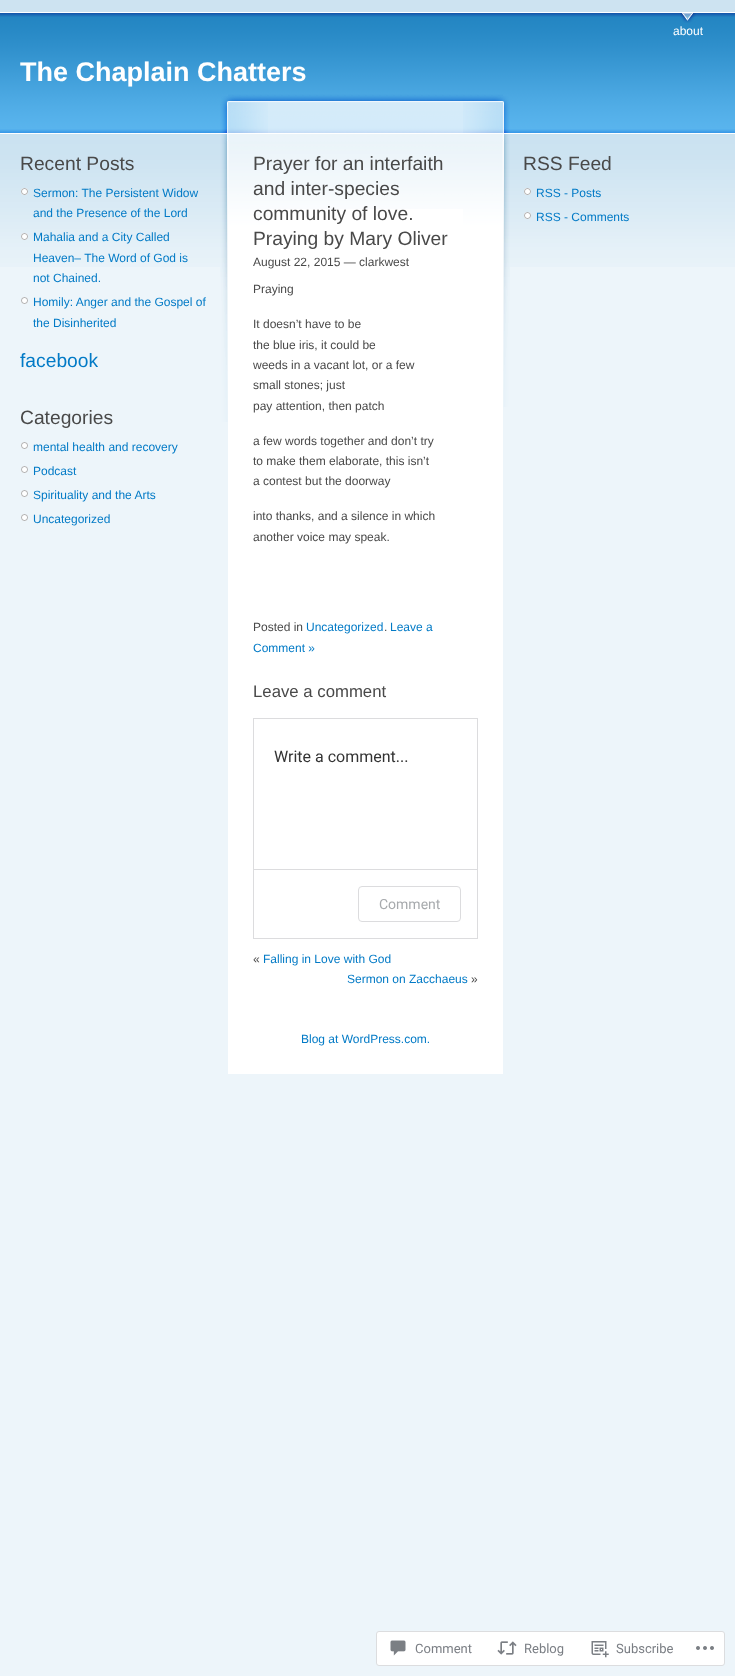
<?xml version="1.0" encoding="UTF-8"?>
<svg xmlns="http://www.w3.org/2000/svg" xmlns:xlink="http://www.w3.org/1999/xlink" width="735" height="1676">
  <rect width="100%" height="100%" fill="#edf5fa" />
  <rect width="735" height="12" fill="#cde3f1" />
  <image x="0" y="12" width="735" height="255" xlink:href="image1.png" />
  <image x="680" y="13" width="16" height="10" xlink:href="image2.png" />
  <image x="21" y="188" width="7" height="7" xlink:href="image3.png" />
  <image x="21" y="233" width="7" height="7" xlink:href="image4.png" />
  <image x="21" y="297" width="7" height="7" xlink:href="image5.png" />
  <image x="21" y="442" width="7" height="7" xlink:href="image5.png" />
  <image x="21" y="466" width="7" height="7" xlink:href="image5.png" />
  <image x="21" y="490" width="7" height="7" xlink:href="image5.png" />
  <image x="21" y="514" width="7" height="7" xlink:href="image5.png" />
  <rect x="228" y="209" width="275" height="865" fill="#ffffff" />
  <image x="228" y="92" width="275" height="117" xlink:href="image6.png" />
  <image x="463" y="96" width="47" height="311" xlink:href="image7.png" />
  <image x="220" y="96" width="48" height="326" xlink:href="image8.png" />
  <rect x="253.5" y="718.5" width="224" height="220" fill="none" stroke="#dcdcde" />
  <rect x="254" y="869" width="223" height="1" fill="#dcdcde" />
  <rect x="358.5" y="886.5" width="102" height="35" rx="3.5" fill="none" stroke="#dcdcde" />
  <image x="524" y="188" width="7" height="7" xlink:href="image3.png" />
  <image x="524" y="212" width="7" height="7" xlink:href="image9.png" />
  <rect x="376.5" y="1631.5" width="348" height="34" rx="2.5" fill="#ffffff" stroke="#dcdddf" />
  <image x="390" y="1640" width="16" height="16" xlink:href="image10.png" />
  <image x="497" y="1641" width="20" height="14" xlink:href="image11.png" />
  <image x="591" y="1641" width="18" height="17" xlink:href="image12.png" />
  <image x="696" y="1646" width="18" height="4" xlink:href="image13.png" />
  <text x="673" y="35" style="font-family: Liberation Sans; font-size: 12px; fill: #ffffff">about</text>
  <text x="20" y="81" style="font-family: Liberation Sans; font-size: 27px; font-weight: bold; fill: #ffffff">The Chaplain Chatters</text>
  <text x="20" y="170" style="font-family: Liberation Sans; font-size: 19.25px; fill: #494949">Recent Posts</text>
  <text x="33" y="197" style="font-family: Liberation Sans; font-size: 12px; fill: #027ac6">Sermon: The Persistent Widow</text>
  <text x="33" y="217" style="font-family: Liberation Sans; font-size: 12px; fill: #027ac6">and the Presence of the Lord</text>
  <text x="33" y="241" style="font-family: Liberation Sans; font-size: 12px; fill: #027ac6">Mahalia and a City Called</text>
  <text x="33" y="262" style="font-family: Liberation Sans; font-size: 12px; fill: #027ac6">Heaven– The Word of God is</text>
  <text x="33" y="282" style="font-family: Liberation Sans; font-size: 12px; fill: #027ac6">not Chained.</text>
  <text x="33" y="306" style="font-family: Liberation Sans; font-size: 12px; fill: #027ac6">Homily: Anger and the Gospel of</text>
  <text x="33" y="327" style="font-family: Liberation Sans; font-size: 12px; fill: #027ac6">the Disinherited</text>
  <text x="20" y="367" style="font-family: Liberation Sans; font-size: 19.25px; fill: #027ac6">facebook</text>
  <text x="20" y="424" style="font-family: Liberation Sans; font-size: 19.25px; fill: #494949">Categories</text>
  <text x="33" y="451" style="font-family: Liberation Sans; font-size: 12px; fill: #027ac6">mental health and recovery</text>
  <text x="33" y="475" style="font-family: Liberation Sans; font-size: 12px; fill: #027ac6">Podcast</text>
  <text x="33" y="499" style="font-family: Liberation Sans; font-size: 12px; fill: #027ac6">Spirituality and the Arts</text>
  <text x="33" y="523" style="font-family: Liberation Sans; font-size: 12px; fill: #027ac6">Uncategorized</text>
  <text x="253" y="170" style="font-family: Liberation Sans; font-size: 19.25px; fill: #494949">Prayer for an interfaith</text>
  <text x="253" y="195" style="font-family: Liberation Sans; font-size: 19.25px; fill: #494949">and inter-species</text>
  <text x="253" y="220" style="font-family: Liberation Sans; font-size: 19.25px; fill: #494949">community of love.</text>
  <text x="253" y="245" style="font-family: Liberation Sans; font-size: 19.25px; fill: #494949">Praying by Mary Oliver</text>
  <text x="253" y="266" style="font-family: Liberation Sans; font-size: 12px; fill: #494949">August 22, 2015 — clarkwest</text>
  <text x="253" y="293" style="font-family: Liberation Sans; font-size: 12px; fill: #494949">Praying</text>
  <text x="253" y="328" style="font-family: Liberation Sans; font-size: 12px; fill: #494949">It doesn’t have to be</text>
  <text x="253" y="349" style="font-family: Liberation Sans; font-size: 12px; fill: #494949">the blue iris, it could be</text>
  <text x="253" y="369" style="font-family: Liberation Sans; font-size: 12px; fill: #494949">weeds in a vacant lot, or a few</text>
  <text x="253" y="389" style="font-family: Liberation Sans; font-size: 12px; fill: #494949">small stones; just</text>
  <text x="253" y="410" style="font-family: Liberation Sans; font-size: 12px; fill: #494949">pay attention, then patch</text>
  <text x="253" y="445" style="font-family: Liberation Sans; font-size: 12px; fill: #494949">a few words together and don’t try</text>
  <text x="253" y="465" style="font-family: Liberation Sans; font-size: 12px; fill: #494949">to make them elaborate, this isn’t</text>
  <text x="253" y="485" style="font-family: Liberation Sans; font-size: 12px; fill: #494949">a contest but the doorway</text>
  <text x="253" y="520" style="font-family: Liberation Sans; font-size: 12px; fill: #494949">into thanks, and a silence in which</text>
  <text x="253" y="541" style="font-family: Liberation Sans; font-size: 12px; fill: #494949">another voice may speak.</text>
  <text x="253" y="631" style="font-family: Liberation Sans; font-size: 12px; fill: #494949">Posted in</text>
  <text x="306" y="631" style="font-family: Liberation Sans; font-size: 12px; fill: #027ac6">Uncategorized</text>
  <text x="384" y="631" style="font-family: Liberation Sans; font-size: 12px; fill: #494949">.</text>
  <text x="390" y="631" style="font-family: Liberation Sans; font-size: 12px; fill: #027ac6">Leave a</text>
  <text x="253" y="652" style="font-family: Liberation Sans; font-size: 12px; fill: #027ac6">Comment »</text>
  <text x="253" y="697" style="font-family: Liberation Sans; font-size: 16.75px; fill: #494949">Leave a comment</text>
  <text x="274" y="762" style="font-family: Roboto; font-size: 16px; fill: #333333">Write a comment...</text>
  <text x="379" y="909" style="font-family: Roboto; font-size: 14px; fill: #a7aaad">Comment</text>
  <text x="253" y="963" style="font-family: Liberation Sans; font-size: 12px; fill: #494949">«</text>
  <text x="263" y="963" style="font-family: Liberation Sans; font-size: 12px; fill: #027ac6">Falling in Love with God</text>
  <text x="347" y="983" style="font-family: Liberation Sans; font-size: 12px; fill: #027ac6">Sermon on Zacchaeus</text>
  <text x="471" y="983" style="font-family: Liberation Sans; font-size: 12px; fill: #494949">»</text>
  <text x="301" y="1043" style="font-family: Liberation Sans; font-size: 12px; fill: #027ac6">Blog at WordPress.com.</text>
  <text x="523" y="170" style="font-family: Liberation Sans; font-size: 19.25px; fill: #494949">RSS Feed</text>
  <text x="536" y="197" style="font-family: Liberation Sans; font-size: 12px; fill: #027ac6">RSS - Posts</text>
  <text x="536" y="221" style="font-family: Liberation Sans; font-size: 12px; fill: #027ac6">RSS - Comments</text>
  <text x="415" y="1653" style="font-family: Roboto; font-size: 13px; fill: #7a7e84">Comment</text>
  <text x="524" y="1653" style="font-family: Roboto; font-size: 13px; fill: #7a7e84">Reblog</text>
  <text x="616" y="1653" style="font-family: Roboto; font-size: 13px; fill: #7a7e84">Subscribe</text>
</svg>
